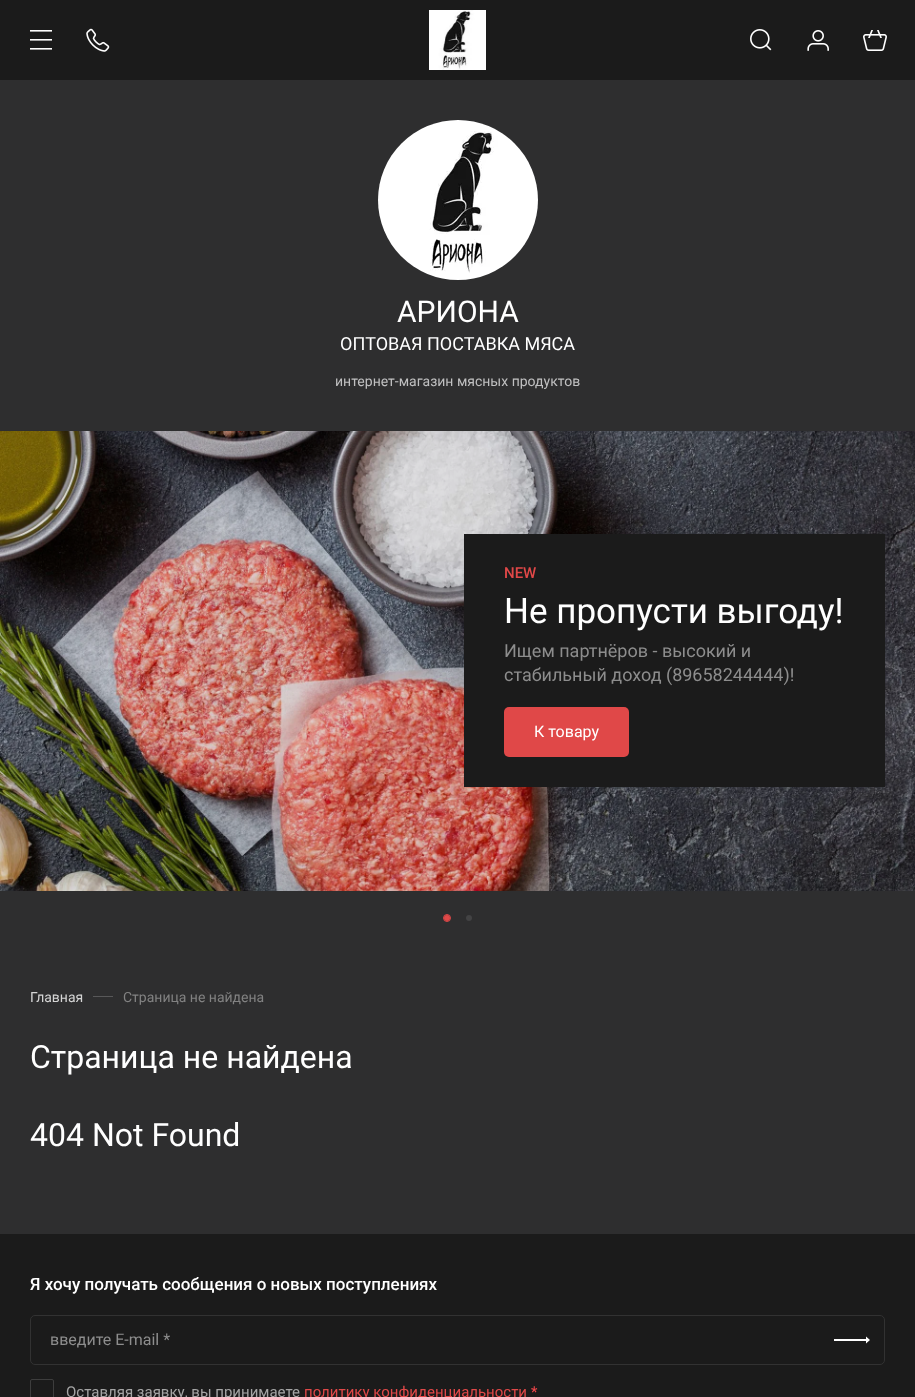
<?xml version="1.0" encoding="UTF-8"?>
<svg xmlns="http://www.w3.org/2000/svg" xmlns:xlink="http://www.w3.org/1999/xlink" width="915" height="1397">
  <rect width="100%" height="100%" fill="#2e2e2f" />
  <rect width="915" height="80" fill="#1b1b1b" />
  <image x="30" y="30" width="22" height="20" xlink:href="image1.png" />
  <image x="86" y="28" width="24" height="24" xlink:href="image2.png" />
  <image x="429" y="10" width="57" height="60" xlink:href="image3.png" />
  <image x="750" y="29" width="22" height="22" xlink:href="image4.png" />
  <image x="807" y="30" width="22" height="21" xlink:href="image5.png" />
  <image x="863" y="30" width="24" height="21" xlink:href="image6.png" />
  <image x="378" y="120" width="160" height="160" xlink:href="image7.png" />
  <image x="0" y="431" width="915" height="460" xlink:href="image8.png" />
  <rect x="464" y="534" width="421" height="253" fill="#1b1b1b" />
  <rect x="504" y="707" width="125" height="50" rx="5" fill="#e04848" />
  <circle cx="447" cy="918" r="3.5" fill="none" stroke="#e04848" />
  <circle cx="447" cy="918" r="3" fill="#e04848" />
  <circle cx="469" cy="918" r="3" fill="#434344" />
  <rect x="93" y="996" width="20" height="1" fill="#585859" />
  <rect y="1234" width="915" height="163" fill="#1b1b1b" />
  <rect x="30.5" y="1315.5" width="854" height="49" rx="4.5" fill="none" stroke="#323232" />
  <path d="M 866 1341 v 2.5 l 4 -3.5 l -4 -3.5 v 2.5 h -32 v 2 z" fill="#ffffff" />
  <rect x="30.5" y="1379.5" width="23" height="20" rx="1.5" fill="none" stroke="#3d3d3d" />
  <text x="397" y="322" style="font-family: Roboto; font-size: 30px; fill: #ffffff">АРИОНА</text>
  <text x="340" y="350" style="font-family: Roboto; font-size: 18px; fill: #ffffff">ОПТОВАЯ ПОСТАВКА МЯСА</text>
  <text x="335" y="386" style="font-family: Roboto; font-size: 14px; fill: #c0c0c1">интернет-магазин мясных продуктов</text>
  <text x="504" y="578" style="font-family: Roboto; font-size: 15px; font-weight: 500; fill: #e04848">NEW</text>
  <text x="504" y="623" style="font-family: Roboto; font-size: 35px; fill: #ffffff">Не пропусти выгоду!</text>
  <text x="504" y="657" style="font-family: Roboto; font-size: 18px; fill: #8d8d8d">Ищем партнёров - высокий и</text>
  <text x="504" y="681" style="font-family: Roboto; font-size: 18px; fill: #8d8d8d">стабильный доход (89658244444)!</text>
  <text x="534" y="737" style="font-family: Roboto; font-size: 16px; fill: #ffffff">К товару</text>
  <text x="30" y="1002" style="font-family: Roboto; font-size: 14px; fill: #d5d5d5">Главная</text>
  <text x="123" y="1002" style="font-family: Roboto; font-size: 14px; fill: #828282">Страница не найдена</text>
  <text x="30" y="1068" style="font-family: Roboto; font-size: 32px; fill: #ffffff">Страница не найдена</text>
  <text x="30" y="1146" style="font-family: Roboto; font-size: 32px; fill: #ffffff">404 Not Found</text>
  <text x="30" y="1290" style="font-family: Roboto; font-size: 17px; font-weight: 500; fill: #ffffff">Я хочу получать сообщения о новых поступлениях</text>
  <text x="50" y="1345" style="font-family: Roboto; font-size: 16px; fill: #8d8d8d">введите E-mail *</text>
  <text x="66" y="1397" style="font-family: Roboto; font-size: 15px; fill: #a4a4a4">Оставляя заявку, вы принимаете</text>
  <text x="304" y="1397" style="font-family: Roboto; font-size: 15px; fill: #e04848">политику конфиденциальности</text>
  <text x="531" y="1397" style="font-family: Roboto; font-size: 15px; fill: #f5474b">*</text>
</svg>
